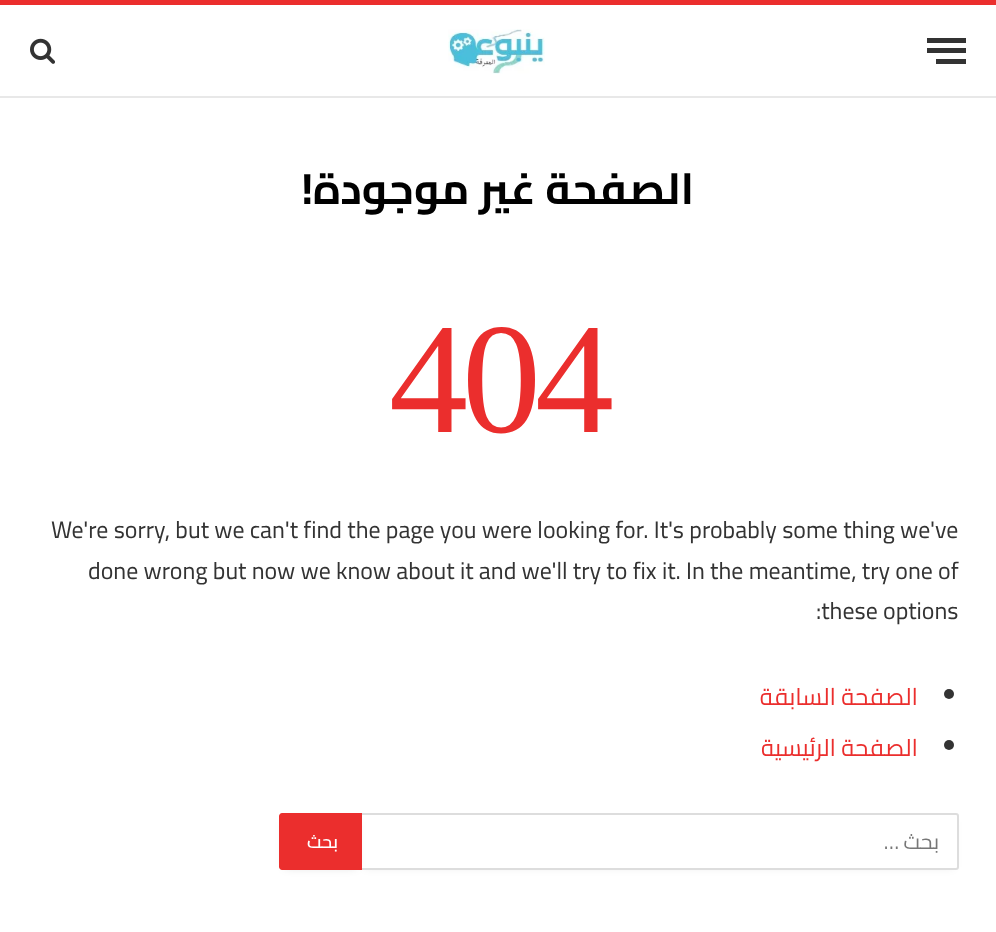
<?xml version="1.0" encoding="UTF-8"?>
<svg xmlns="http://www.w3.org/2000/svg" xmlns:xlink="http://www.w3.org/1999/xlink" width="996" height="932">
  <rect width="100%" height="100%" fill="#ffffff" />
  <rect width="996" height="5" fill="#eb2e2d" />
  <rect y="96" width="996" height="2" fill="#e8e8e8" />
  <image x="30" y="38" width="25" height="26" xlink:href="image1.png" />
  <image x="448" y="29" width="97" height="45" xlink:href="image2.png" />
  <rect x="936" y="59" width="30" height="5" fill="#333333" />
  <rect x="927" y="38" width="39" height="5" fill="#333333" />
  <rect x="927" y="48" width="39" height="5" fill="#333333" />
  <circle cx="949" cy="694" r="5" fill="#333333" />
  <circle cx="949" cy="745" r="5" fill="#333333" />
  <rect x="365" y="822" width="588" height="45" fill="#000000" fill-opacity="0.1" filter="blur(5px)" />
  <rect x="360" y="814" width="598" height="55" rx="2" fill="#ffffff" stroke="#dddddd" stroke-width="2" />
  <rect x="285" y="822" width="71" height="45" fill="#000000" fill-opacity="0.16" filter="blur(5px)" />
  <path d="M 282 813 h 80 v 57 h -80 c -1.5 0 -3 -1.5 -3 -3 v -51 c 0 -1.5 1.5 -3 3 -3 z" fill="#eb2e2d" />
  <text x="694" y="204" style="font-family: Cairo; font-size: 43.5px; font-weight: bold; direction: rtl; fill: #000000">الصفحة غير موجودة!</text>
  <text x="389" y="432" style="font-family: Liberation Serif; font-size: 158px; letter-spacing: -6px; fill: #eb2e2d">404</text>
  <text x="51" y="538" style="font-family: Cairo; font-size: 23.9px; fill: #333333">We're sorry, but we can't find the page you were looking for. It's probably some thing we've</text>
  <text x="88" y="579" style="font-family: Cairo; font-size: 23.9px; fill: #333333">done wrong but now we know about it and we'll try to fix it. In the meantime, try one of</text>
  <text x="816" y="619" style="font-family: Cairo; font-size: 23.9px; fill: #333333">:these options</text>
  <text x="918" y="705" style="font-family: Cairo; font-size: 23.9px; direction: rtl; fill: #eb2e2d">الصفحة السابقة</text>
  <text x="918" y="756" style="font-family: Cairo; font-size: 23.9px; direction: rtl; fill: #eb2e2d">الصفحة الرئيسية</text>
  <text x="338" y="848" style="font-family: Cairo; font-size: 18px; font-weight: 600; letter-spacing: 0.5px; direction: rtl; fill: #ffffff">بحث</text>
  <text x="939" y="849" style="font-family: Cairo; font-size: 21px; direction: rtl; fill: #777777">بحث …</text>
</svg>
